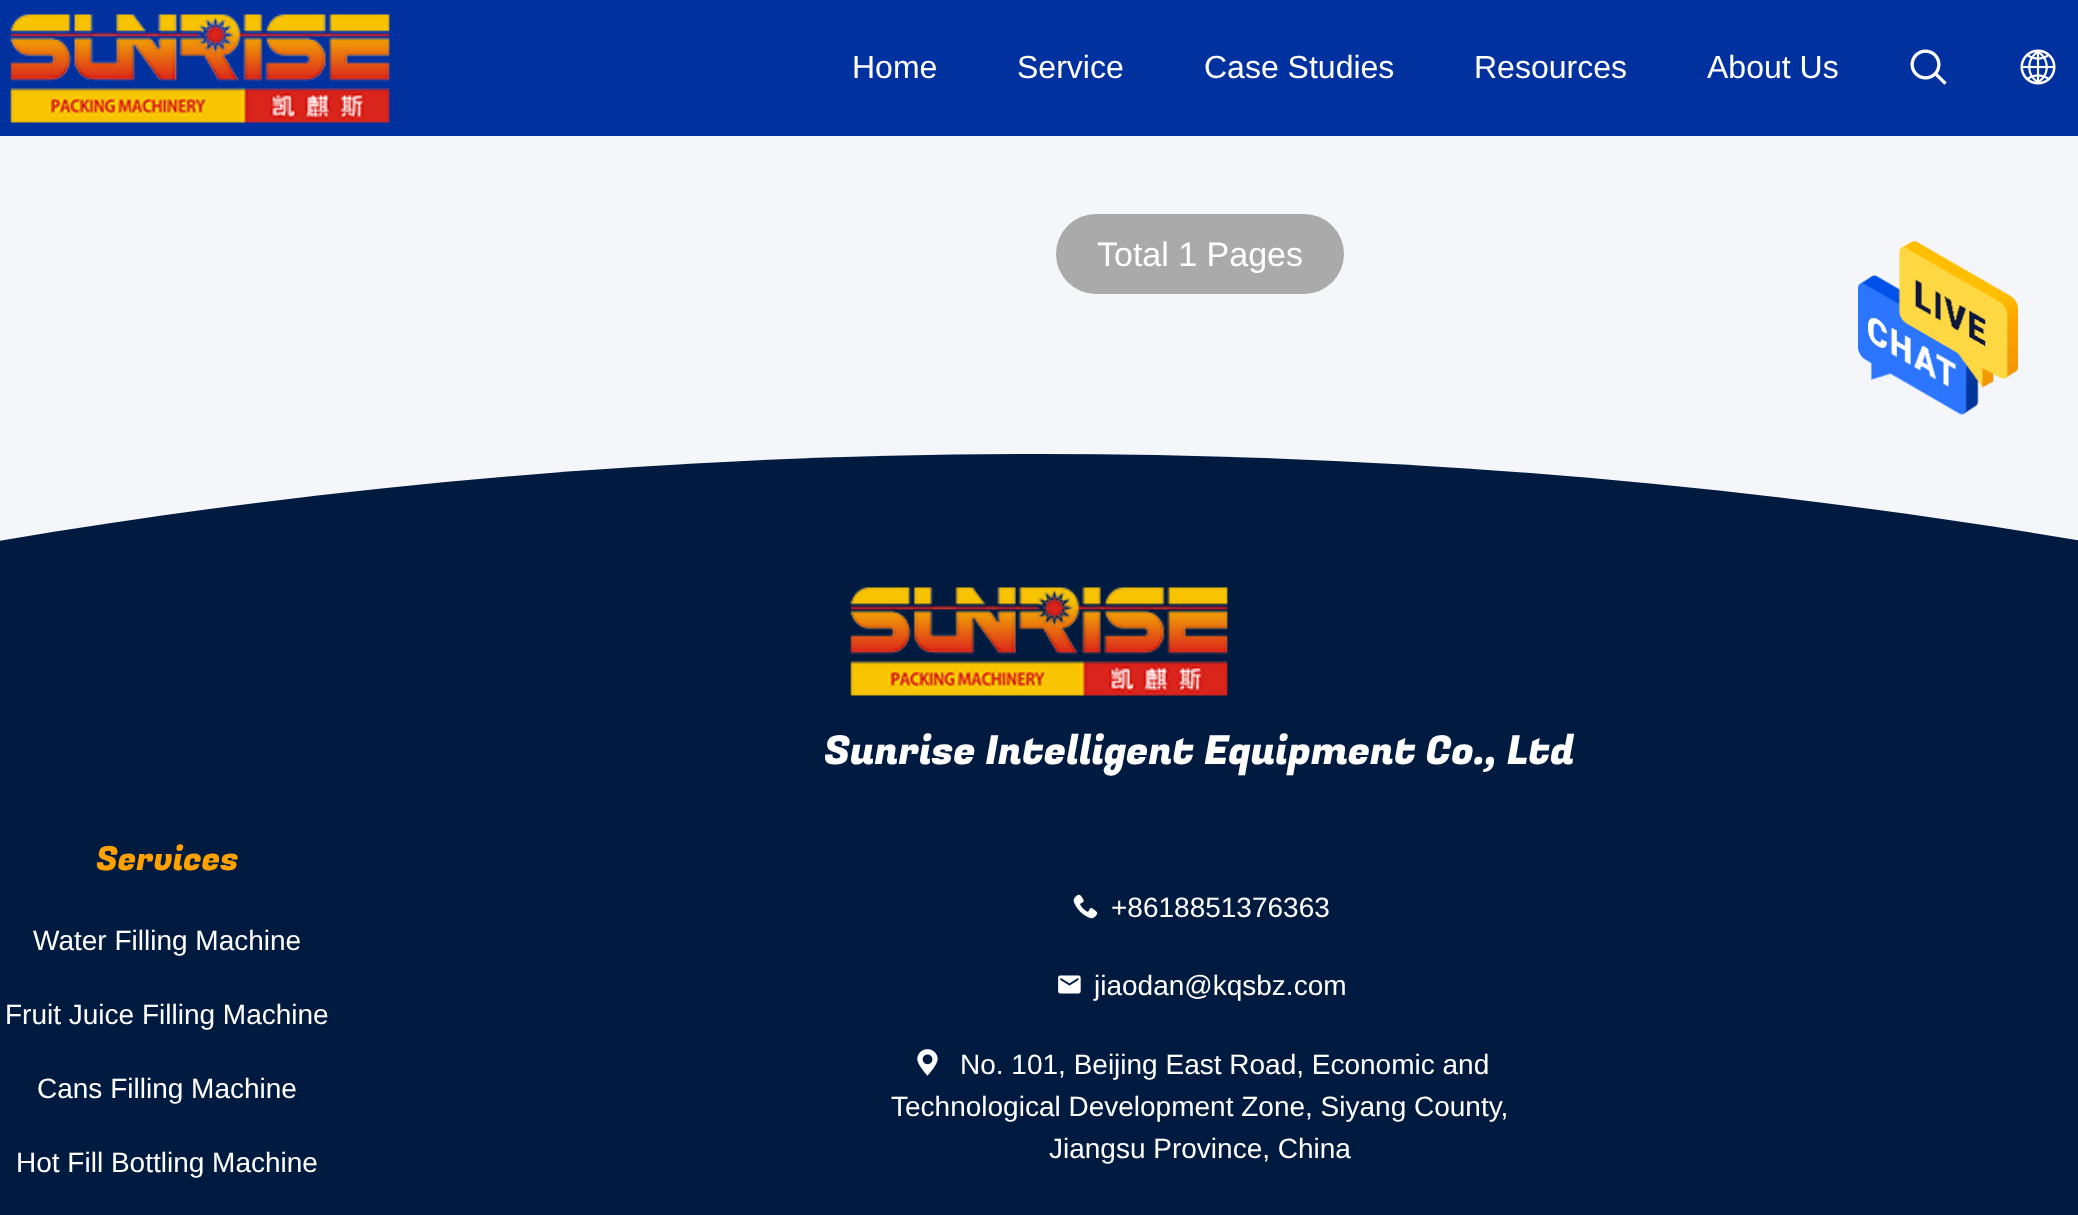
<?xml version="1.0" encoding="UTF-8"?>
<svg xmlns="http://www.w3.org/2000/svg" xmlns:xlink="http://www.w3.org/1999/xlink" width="2078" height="1215">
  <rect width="100%" height="100%" fill="#f4f6f9" />
  <rect width="2078" height="136" fill="#00319f" />
  <image x="10" y="14" width="380" height="109" xlink:href="image1.png" />
  <image x="1910" y="49" width="37" height="36" xlink:href="image2.png" />
  <image x="2020" y="49" width="36" height="36" xlink:href="image3.png" />
  <rect x="1056" y="214" width="288" height="80" rx="40" fill="#aaaaaa" />
  <image x="1858" y="240" width="160" height="175" xlink:href="image4.png" />
  <path d="M 1040 454 c 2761 0 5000 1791 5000 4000 h -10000 c 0 -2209 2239 -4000 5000 -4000 z" fill="#001b3f" />
  <image x="850" y="587" width="378" height="109" xlink:href="image5.png" />
  <image x="1073" y="894" width="25" height="25" xlink:href="image6.png" />
  <image x="1058" y="975" width="23" height="19" xlink:href="image7.png" />
  <image x="917" y="1049" width="21" height="27" xlink:href="image8.png" />
  <text x="852" y="78" style="font-family: Liberation Sans; font-size: 32px; fill: #ffffff">Home</text>
  <text x="1017" y="78" style="font-family: Liberation Sans; font-size: 32px; fill: #ffffff">Service</text>
  <text x="1204" y="78" style="font-family: Liberation Sans; font-size: 32px; fill: #ffffff">Case Studies</text>
  <text x="1474" y="78" style="font-family: Liberation Sans; font-size: 32px; fill: #ffffff">Resources</text>
  <text x="1707" y="78" style="font-family: Liberation Sans; font-size: 32px; fill: #ffffff">About Us</text>
  <text x="1097" y="266" style="font-family: Liberation Sans; font-size: 34px; fill: #ffffff">Total 1 Pages</text>
  <text x="824" y="764" style="font-family: Fugaz One; font-size: 40px; fill: #ffffff">Sunrise Intelligent Equipment Co., Ltd</text>
  <text x="96" y="870" style="font-family: Fugaz One; font-size: 33.5px; fill: #ffa100">Services</text>
  <text x="33" y="950" style="font-family: Liberation Sans; font-size: 28px; fill: #ffffff">Water Filling Machine</text>
  <text x="5" y="1024" style="font-family: Liberation Sans; font-size: 28px; fill: #ffffff">Fruit Juice Filling Machine</text>
  <text x="37" y="1098" style="font-family: Liberation Sans; font-size: 28px; fill: #ffffff">Cans Filling Machine</text>
  <text x="16" y="1172" style="font-family: Liberation Sans; font-size: 28px; fill: #ffffff">Hot Fill Bottling Machine</text>
  <text x="1111" y="917" style="font-family: Liberation Sans; font-size: 28px; fill: #ffffff">+8618851376363</text>
  <text x="1094" y="995" style="font-family: Liberation Sans; font-size: 28px; fill: #ffffff">jiaodan@kqsbz.com</text>
  <text x="960" y="1074" style="font-family: Liberation Sans; font-size: 28px; fill: #ffffff">No. 101, Beijing East Road, Economic and</text>
  <text x="891" y="1116" style="font-family: Liberation Sans; font-size: 28px; fill: #ffffff">Technological Development Zone, Siyang County,</text>
  <text x="1049" y="1158" style="font-family: Liberation Sans; font-size: 28px; fill: #ffffff">Jiangsu Province, China</text>
</svg>
